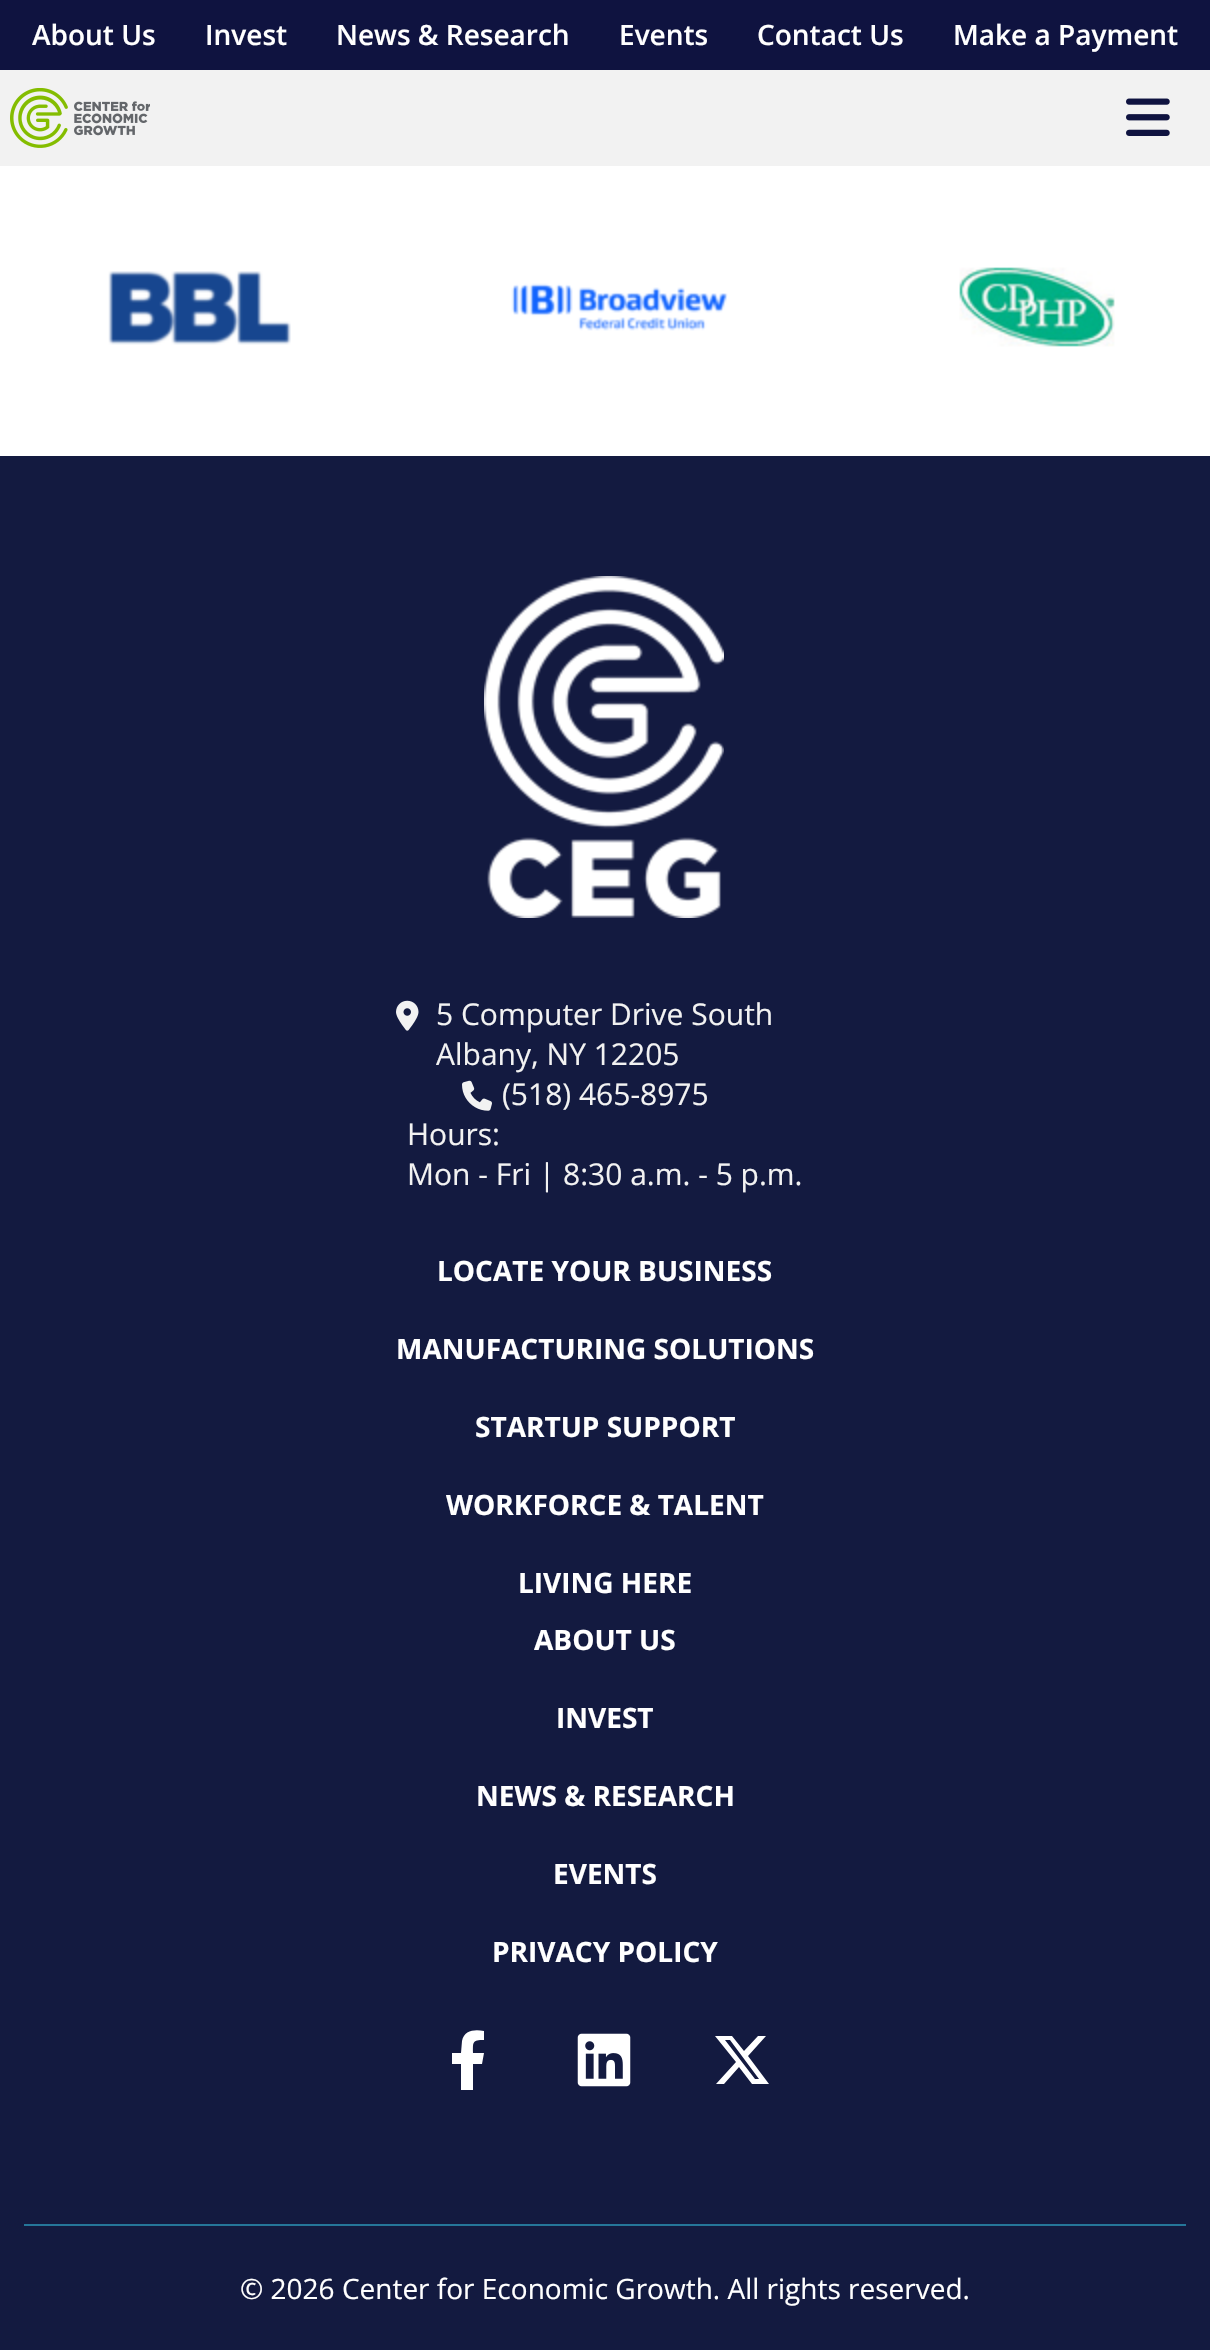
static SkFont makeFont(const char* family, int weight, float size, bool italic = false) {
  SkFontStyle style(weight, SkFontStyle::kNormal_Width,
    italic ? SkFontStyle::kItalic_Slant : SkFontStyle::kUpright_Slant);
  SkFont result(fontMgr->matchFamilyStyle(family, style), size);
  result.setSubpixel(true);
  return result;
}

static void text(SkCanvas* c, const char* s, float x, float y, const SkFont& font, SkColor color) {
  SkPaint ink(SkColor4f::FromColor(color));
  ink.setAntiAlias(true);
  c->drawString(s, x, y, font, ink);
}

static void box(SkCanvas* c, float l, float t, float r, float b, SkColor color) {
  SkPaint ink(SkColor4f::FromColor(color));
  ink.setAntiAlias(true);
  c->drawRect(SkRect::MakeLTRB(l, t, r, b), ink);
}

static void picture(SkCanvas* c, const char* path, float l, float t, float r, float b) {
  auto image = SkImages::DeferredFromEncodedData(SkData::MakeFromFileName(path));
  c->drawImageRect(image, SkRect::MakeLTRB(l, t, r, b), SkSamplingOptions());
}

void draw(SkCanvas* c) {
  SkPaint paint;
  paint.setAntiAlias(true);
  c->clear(0xffffffff);
  box(c, 0, 70, 1210, 166, 0xfff2f2f2);
  box(c, 0, 0, 1210, 70, 0xff0f1340);
  SkFont face1 = makeFont("Open Sans", 600, 28);
  text(c, "About Us", 32, 45, face1, 0xffffffff);
  text(c, "Invest", 205, 45, face1, 0xffffffff);
  text(c, "News & Research", 336, 45, face1, 0xffffffff);
  text(c, "Events", 619, 45, face1, 0xffffffff);
  text(c, "Contact Us", 757, 45, face1, 0xffffffff);
  text(c, "Make a Payment", 953, 45, face1, 0xffffffff);
  picture(c, "img_01.png", 10, 88, 150, 148);
  picture(c, "img_02.png", 1126, 98, 1170, 136);
  picture(c, "img_03.png", 108, 271, 291, 345);
  picture(c, "img_04.png", 511, 283, 728, 331);
  picture(c, "img_05.png", 959, 267, 1115, 347);
  box(c, 0, 456, 1210, 2350, 0xff131a40);
  picture(c, "img_06.png", 484, 576, 724, 918);
  picture(c, "img_07.png", 396, 1000, 419, 1031);
  SkFont face2 = makeFont("Open Sans", 400, 30);
  text(c, "5 Computer Drive South", 436, 1025, face2, 0xfff2f2f2);
  text(c, "Albany, NY 12205", 436, 1065, face2, 0xfff2f2f2);
  picture(c, "img_08.png", 462, 1080, 492, 1111);
  text(c, "(518) 465-8975", 502, 1105, face2, 0xfff2f2f2);
  text(c, "Hours:", 407, 1145, face2, 0xfff2f2f2);
  text(c, "Mon - Fri | 8:30 a.m. - 5 p.m.", 407, 1185, face2, 0xfff2f2f2);
  SkFont face3 = makeFont("Open Sans", 700, 28);
  text(c, "LOCATE YOUR BUSINESS", 437, 1281, face3, 0xffffffff);
  text(c, "MANUFACTURING SOLUTIONS", 396, 1359, face3, 0xffffffff);
  text(c, "STARTUP SUPPORT", 475, 1437, face3, 0xffffffff);
  text(c, "WORKFORCE & TALENT", 446, 1515, face3, 0xffffffff);
  text(c, "LIVING HERE", 518, 1593, face3, 0xffffffff);
  text(c, "ABOUT US", 534, 1650, face3, 0xffffffff);
  text(c, "INVEST", 556, 1728, face3, 0xffffffff);
  text(c, "NEWS & RESEARCH", 476, 1806, face3, 0xffffffff);
  text(c, "EVENTS", 553, 1884, face3, 0xffffffff);
  text(c, "PRIVACY POLICY", 492, 1962, face3, 0xffffffff);
  paint.setColor(0xffffffff);
  c->drawPath(SkPathBuilder().moveTo(482, 2064).lineTo(484, 2053).lineTo(473, 2053).cubicTo(473, 2042, 472, 2040, 484, 2040).lineTo(484, 2031).cubicTo(475, 2029, 464, 2030, 462, 2041).lineTo(461, 2053).lineTo(452, 2053).lineTo(452, 2064).lineTo(461, 2064).lineTo(461, 2090).lineTo(473, 2090).lineTo(473, 2064).close().detach(), paint);
  picture(c, "img_09.png", 577, 2033, 631, 2087);
  c->drawPath(SkPathBuilder().moveTo(758, 2036).lineTo(766, 2036).lineTo(748, 2056).lineTo(769, 2084).lineTo(752, 2084).lineTo(739, 2067).lineTo(724, 2084).lineTo(716, 2084).lineTo(736, 2062).lineTo(715, 2036).lineTo(732, 2036).lineTo(744, 2051).close().moveTo(755, 2079).lineTo(759, 2079).lineTo(730, 2040).lineTo(725, 2040).close().detach(), paint);
  box(c, 24, 2224, 1186, 2226, 0xff25769a);
  SkFont face4 = makeFont("Open Sans", 400, 28);
  text(c, "© 2026 Center for Economic Growth. All rights reserved.", 240, 2299, face4, 0xffffffff);
}
